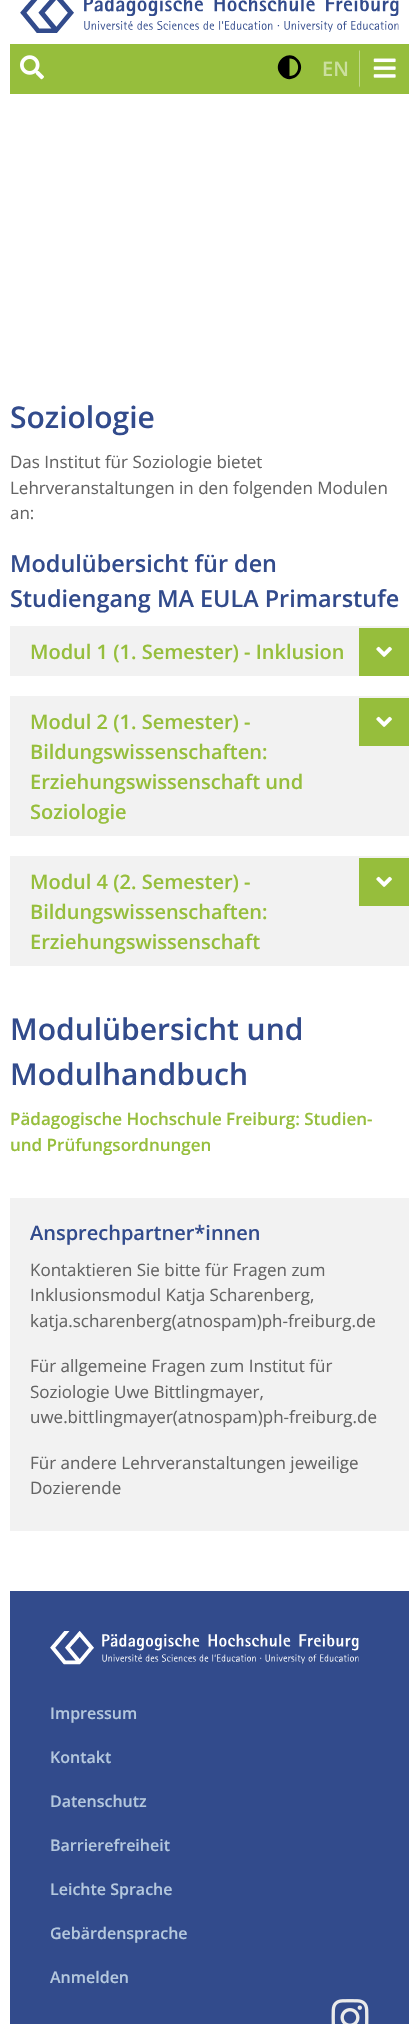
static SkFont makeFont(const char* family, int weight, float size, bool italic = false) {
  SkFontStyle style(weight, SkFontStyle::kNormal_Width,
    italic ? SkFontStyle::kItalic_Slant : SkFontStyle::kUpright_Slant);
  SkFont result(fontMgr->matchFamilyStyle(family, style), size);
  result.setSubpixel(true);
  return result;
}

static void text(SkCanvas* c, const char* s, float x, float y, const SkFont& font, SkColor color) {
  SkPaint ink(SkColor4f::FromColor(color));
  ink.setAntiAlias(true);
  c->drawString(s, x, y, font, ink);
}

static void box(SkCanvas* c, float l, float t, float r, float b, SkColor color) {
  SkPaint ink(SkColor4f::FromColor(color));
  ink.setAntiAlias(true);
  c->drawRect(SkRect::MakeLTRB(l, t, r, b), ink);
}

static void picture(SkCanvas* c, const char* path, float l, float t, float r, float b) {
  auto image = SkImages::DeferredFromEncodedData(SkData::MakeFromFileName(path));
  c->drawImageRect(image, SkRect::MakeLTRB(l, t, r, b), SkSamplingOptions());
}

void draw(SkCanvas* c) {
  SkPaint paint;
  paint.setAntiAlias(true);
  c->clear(0xffffffff);
  picture(c, "img_01.png", 20, 0, 399, 33);
  box(c, 10, 44, 409, 94, 0xff96be3c);
  picture(c, "img_02.png", 20, 55, 44, 80);
  paint.setColor(0xff000000);
  c->drawPath(SkPathBuilder().moveTo(281.5f, 75.5f).cubicTo(270.5f, 64.5f, 287, 48, 297.5f, 59).cubicTo(308.5f, 70, 292, 86.5f, 281.5f, 75.5f).close().moveTo(289.5f, 76).cubicTo(301, 76, 301, 58.5f, 289.5f, 58.5f).close().detach(), paint);
  SkFont face1 = makeFont("Open Sans", 600, 20);
  text(c, "EN", 322, 76, face1, 0xffcbdf9e);
  paint.setColor(0xffc0d88a);
  c->drawPath(SkPathBuilder().moveTo(359, 87.5f).lineTo(359, 50).lineTo(360, 51).lineTo(360, 86).close().detach(), paint);
  picture(c, "img_03.png", 373, 58, 396, 78);
  SkFont face2 = makeFont("Open Sans", 600, 30);
  text(c, "Soziologie", 10, 428, face2, 0xff324b8c);
  SkFont face3 = makeFont("Open Sans", 400, 17);
  text(c, "Das Institut für Soziologie bietet", 10, 468, face3, 0xff646464);
  text(c, "Lehrveranstaltungen in den folgenden Modulen", 10, 494, face3, 0xff646464);
  text(c, "an:", 10, 519, face3, 0xff646464);
  SkFont face4 = makeFont("Open Sans", 600, 23.4f);
  text(c, "Modulübersicht für den", 10, 572, face4, 0xff324b8c);
  text(c, "Studiengang MA EULA Primarstufe", 10, 607, face4, 0xff324b8c);
  box(c, 10, 626, 409, 676, 0xfff2f2f2);
  text(c, "Modul 1 (1. Semester) - Inklusion", 30, 659, face1, 0xff96be3c);
  box(c, 359, 628, 409, 676, 0xff96be3c);
  picture(c, "img_04.png", 376, 646, 392, 657);
  box(c, 10, 696, 409, 836, 0xfff2f2f2);
  text(c, "Modul 2 (1. Semester) -", 30, 729, face1, 0xff96be3c);
  box(c, 359, 698, 409, 746, 0xff96be3c);
  picture(c, "img_04.png", 376, 716, 392, 727);
  text(c, "Bildungswissenschaften:", 30, 759, face1, 0xff96be3c);
  text(c, "Erziehungswissenschaft und", 30, 789, face1, 0xff96be3c);
  text(c, "Soziologie", 30, 819, face1, 0xff96be3c);
  box(c, 10, 856, 409, 966, 0xfff2f2f2);
  text(c, "Modul 4 (2. Semester) -", 30, 889, face1, 0xff96be3c);
  box(c, 359, 858, 409, 906, 0xff96be3c);
  picture(c, "img_04.png", 376, 876, 392, 887);
  text(c, "Bildungswissenschaften:", 30, 919, face1, 0xff96be3c);
  text(c, "Erziehungswissenschaft", 30, 949, face1, 0xff96be3c);
  text(c, "Modulübersicht und", 10, 1040, face2, 0xff324b8c);
  text(c, "Modulhandbuch", 10, 1085, face2, 0xff324b8c);
  SkFont face5 = makeFont("Open Sans", 600, 17);
  text(c, "Pädagogische Hochschule Freiburg: Studien-", 10, 1125, face5, 0xff96be3c);
  text(c, "und Prüfungsordnungen", 10, 1151, face5, 0xff96be3c);
  box(c, 10, 1198, 409, 1531, 0xfff2f2f2);
  text(c, "Ansprechpartner*innen", 30, 1240, face1, 0xff324b8c);
  text(c, "Kontaktieren Sie bitte für Fragen zum", 30, 1276, face3, 0xff646464);
  text(c, "Inklusionsmodul Katja Scharenberg,", 30, 1301, face3, 0xff646464);
  text(c, "katja.scharenberg(atnospam)ph-freiburg.de", 30, 1327, face3, 0xff646464);
  text(c, "Für allgemeine Fragen zum Institut für", 30, 1372, face3, 0xff646464);
  text(c, "Soziologie Uwe Bittlingmayer,", 30, 1398, face3, 0xff646464);
  text(c, "uwe.bittlingmayer(atnospam)ph-freiburg.de", 30, 1423, face3, 0xff646464);
  text(c, "Für andere Lehrveranstaltungen jeweilige", 30, 1469, face3, 0xff646464);
  text(c, "Dozierende", 30, 1494, face3, 0xff646464);
  box(c, 10, 1591, 409, 2024, 0xff324b8c);
  picture(c, "img_05.png", 50, 1631, 359, 1665);
  SkFont face6 = makeFont("Open Sans", 600, 16);
  text(c, "Impressum", 50, 1719, face6, 0xffb4c8de);
  text(c, "Kontakt", 50, 1763, face6, 0xffb4c8de);
  text(c, "Datenschutz", 50, 1807, face6, 0xffb4c8de);
  text(c, "Barrierefreiheit", 50, 1851, face6, 0xffb4c8de);
  text(c, "Leichte Sprache", 50, 1895, face6, 0xffb4c8de);
  text(c, "Gebärdensprache", 50, 1939, face6, 0xffb4c8de);
  text(c, "Anmelden", 50, 1983, face6, 0xffb4c8de);
  picture(c, "img_06.png", 331, 1999, 369, 2024);
}
